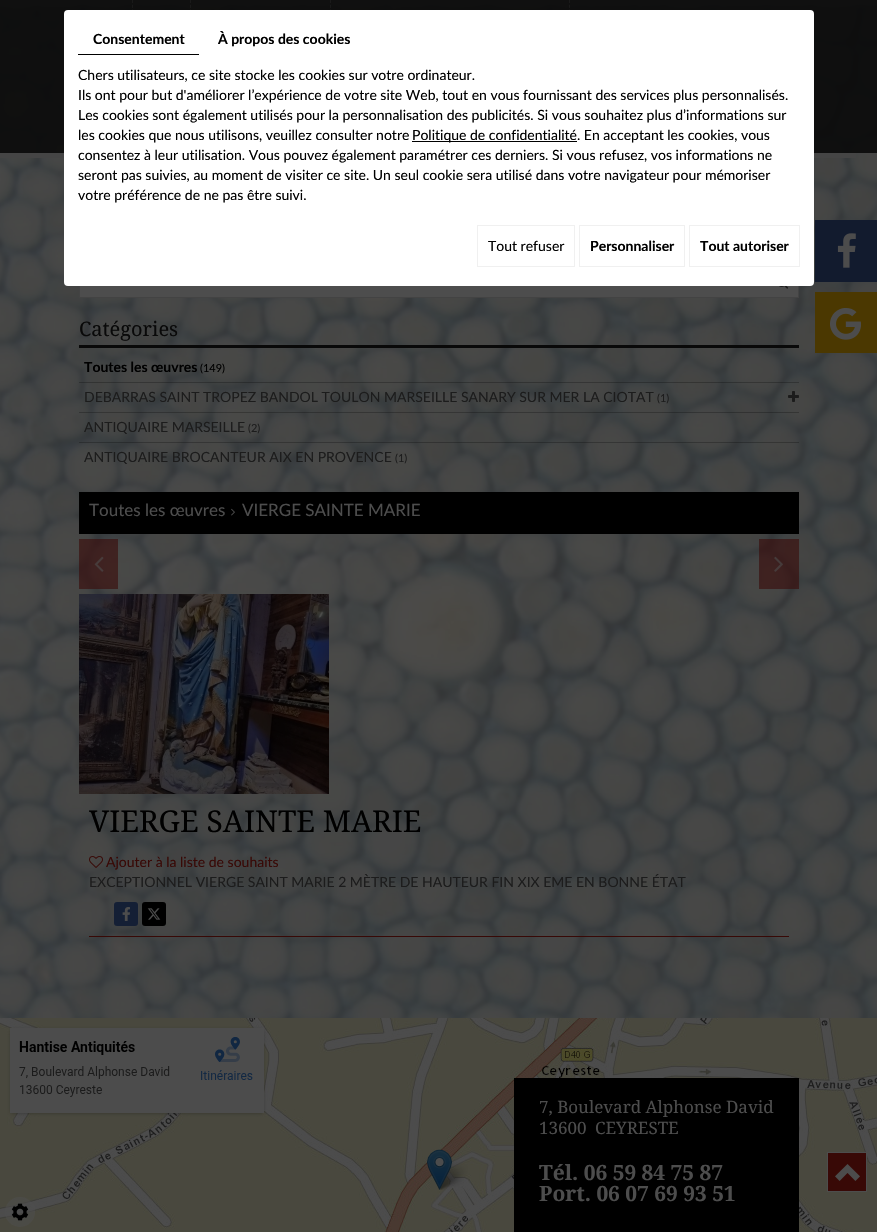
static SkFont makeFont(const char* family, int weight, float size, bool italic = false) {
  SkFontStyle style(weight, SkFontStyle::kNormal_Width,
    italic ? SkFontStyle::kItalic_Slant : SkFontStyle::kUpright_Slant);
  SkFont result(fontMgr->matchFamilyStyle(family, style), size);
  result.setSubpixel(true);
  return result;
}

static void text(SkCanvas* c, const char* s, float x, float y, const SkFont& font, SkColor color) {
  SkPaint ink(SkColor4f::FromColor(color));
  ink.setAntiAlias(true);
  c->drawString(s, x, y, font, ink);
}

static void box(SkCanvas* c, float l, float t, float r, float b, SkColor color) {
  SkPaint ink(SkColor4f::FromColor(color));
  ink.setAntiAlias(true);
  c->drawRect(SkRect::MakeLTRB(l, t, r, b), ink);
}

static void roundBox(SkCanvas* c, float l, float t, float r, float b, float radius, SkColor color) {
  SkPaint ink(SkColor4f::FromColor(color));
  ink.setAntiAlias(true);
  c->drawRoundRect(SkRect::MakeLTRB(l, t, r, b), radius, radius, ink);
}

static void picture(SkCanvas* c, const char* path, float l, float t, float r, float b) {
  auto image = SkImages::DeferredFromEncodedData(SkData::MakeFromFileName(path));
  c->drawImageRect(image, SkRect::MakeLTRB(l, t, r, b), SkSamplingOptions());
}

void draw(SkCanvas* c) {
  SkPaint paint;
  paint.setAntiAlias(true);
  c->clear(0xff4d4d4d);
  picture(c, "img_01.png", 0, 2, 877, 1018);
  box(c, 0, 0, 877, 153, 0xe6090909);
  box(c, 0, 153, 856, 158, 0xff454545);
  paint.setStyle(SkPaint::kStroke_Style);
  paint.setStrokeWidth(1);
  paint.setColor(0x2b4d4d4d);
  paint.setPathEffect(SkDashPathEffect::Make({{3, 1.8f}}, 0));
  c->drawPath(SkPathBuilder().moveTo(132.5f, 0).lineTo(132.5f, 51).moveTo(190.5f, 0).lineTo(190.5f, 51).detach(), paint);
  paint.setPathEffect(nullptr);
  paint.setPathEffect(SkDashPathEffect::Make({{3, 1.8f}}, 0));
  c->drawPath(SkPathBuilder().moveTo(330.5f, 0).lineTo(330.5f, 51).detach(), paint);
  paint.setPathEffect(nullptr);
  paint.setPathEffect(SkDashPathEffect::Make({{3, 1.8f}}, 0));
  c->drawPath(SkPathBuilder().moveTo(569.5f, 0).lineTo(569.5f, 51).detach(), paint);
  paint.setPathEffect(nullptr);
  box(c, 80, 286, 798, 297, 0xff4d4d4d);
  paint.setColor(0xff434343);
  c->drawRect(SkRect::MakeLTRB(79.5f, 268.5f, 798.5f, 297.5f), paint);
  roundBox(c, 64, 10, 814, 286, 4, 0xffffffff);
  box(c, 78, 54, 199, 55, 0xff000000);
  SkFont face1 = makeFont("Lato", 700, 14);
  text(c, "Consentement", 93, 44, face1, 0xff000000);
  text(c, "À propos des cookies", 218, 44, face1, 0xff000000);
  SkFont face2 = makeFont("Lato", 400, 14);
  text(c, "Chers utilisateurs, ce site stocke les cookies sur votre ordinateur.", 78, 80, face2, 0xff000000);
  text(c, "Ils ont pour but d'améliorer l’expérience de votre site Web, tout en vous fournissant des services plus personnalisés.", 78, 100, face2, 0xff000000);
  text(c, "Les cookies sont également utilisés pour la personnalisation des publicités. Si vous souhaitez plus d’informations sur", 78, 120, face2, 0xff000000);
  text(c, "les cookies que nous utilisons, veuillez consulter notre", 78, 140, face2, 0xff000000);
  box(c, 412, 141, 577, 142, 0xff000000);
  text(c, "Politique de confidentialité. En acceptant les cookies, vous", 412, 140, face2, 0xff000000);
  text(c, "consentez à leur utilisation. Vous pouvez également paramétrer ces derniers. Si vous refusez, vos informations ne", 78, 160, face2, 0xff000000);
  text(c, "seront pas suivies, au moment de visiter ce site. Un seul cookie sera utilisé dans votre navigateur pour mémoriser", 78, 180, face2, 0xff000000);
  text(c, "votre préférence de ne pas être suivi.", 78, 200, face2, 0xff000000);
  paint.setColor(0xfff0f0f0);
  c->drawRect(SkRect::MakeLTRB(477.5f, 225.5f, 574.5f, 266.5f), paint);
  text(c, "Tout refuser", 488, 251, face2, 0xff000000);
  c->drawRect(SkRect::MakeLTRB(579.5f, 225.5f, 684.5f, 266.5f), paint);
  text(c, "Personnaliser", 590, 251, face1, 0xff000000);
  c->drawRect(SkRect::MakeLTRB(689.5f, 225.5f, 799.5f, 266.5f), paint);
  text(c, "Tout autoriser", 700, 251, face1, 0xff000000);
  box(c, 815, 220, 877, 282, 0xff121b2e);
  picture(c, "img_02.png", 837, 233, 856, 268);
  box(c, 815, 292, 877, 353, 0xff4b3801);
  picture(c, "img_03.png", 830, 308, 861, 340);
  picture(c, "img_04.png", 779, 286, 789, 289);
  box(c, 79, 345, 799, 348, 0xff090909);
  SkFont face3 = makeFont("Noto Serif", 400, 20);
  text(c, "Catégories", 79, 336, face3, 0xff090909);
  text(c, "Toutes les œuvres", 84, 372, face1, 0xff000000);
  SkFont face4 = makeFont("Lato", 400, 11);
  text(c, "(149)", 200, 372, face4, 0xff000000);
  box(c, 79, 382, 799, 383, 0x40000000);
  text(c, "DEBARRAS SAINT TROPEZ BANDOL TOULON MARSEILLE SANARY SUR MER LA CIOTAT", 84, 402, face2, 0xff1c1c1c);
  text(c, "(1)", 657, 402, face4, 0xff1c1c1c);
  picture(c, "img_05.png", 788, 391, 799, 402);
  box(c, 79, 412, 799, 413, 0x40000000);
  text(c, "ANTIQUAIRE MARSEILLE", 84, 432, face2, 0xff1c1c1c);
  text(c, "(2)", 248, 432, face4, 0xff1c1c1c);
  box(c, 79, 442, 799, 443, 0x40000000);
  text(c, "ANTIQUAIRE BROCANTEUR AIX EN PROVENCE", 84, 462, face2, 0xff1c1c1c);
  text(c, "(1)", 395, 462, face4, 0xff1c1c1c);
  box(c, 79, 492, 799, 534, 0xff000000);
  SkFont face5 = makeFont("Lato", 400, 17);
  text(c, "Toutes les œuvres", 89, 516, face5, 0xff4d4d4d);
  picture(c, "img_06.png", 231, 508, 235, 516);
  text(c, "VIERGE SAINTE MARIE", 242, 516, face5, 0xff4d4d4d);
  box(c, 79, 539, 118, 589, 0x99380906);
  picture(c, "img_07.png", 94, 556, 104, 572);
  box(c, 759, 539, 799, 589, 0x99380906);
  picture(c, "img_08.png", 774, 556, 783, 572);
  picture(c, "img_09.png", 79, 594, 329, 794);
  SkFont face6 = makeFont("Noto Serif", 400, 30);
  text(c, "VIERGE SAINTE MARIE", 89, 832, face6, 0xff000000);
  picture(c, "img_10.png", 89, 856, 103, 868);
  text(c, "Ajouter à la liste de souhaits", 106, 867, face2, 0xff380906);
  box(c, 89, 936, 789, 937, 0xff380906);
  text(c, "EXCEPTIONNEL VIERGE SAINT MARIE 2 MÈTRE DE HAUTEUR FIN XIX EME EN BONNE ÉTAT", 89, 887, face2, 0xff1c1c1c);
  roundBox(c, 114, 902, 138, 926, 3, 0xff141f35);
  picture(c, "img_11.png", 122, 907, 130, 921);
  roundBox(c, 142, 902, 166, 926, 3, 0xff000000);
  picture(c, "img_12.png", 147, 908, 161, 920);
  picture(c, "img_13.png", 0, 1018, 877, 1232);
  box(c, 514, 1078, 799, 1232, 0xff000000);
  SkFont face7 = makeFont("Noto Serif", 400, 17);
  text(c, "7, Boulevard Alphonse David", 539, 1113, face7, 0xff4d4d4d);
  text(c, "13600", 539, 1134, face7, 0xff4d4d4d);
  text(c, "CEYRESTE", 595, 1134, face7, 0xff4d4d4d);
  SkFont face8 = makeFont("Noto Serif", 700, 21);
  text(c, "Tél. 06 59 84 75 87", 539, 1180, face8, 0xff4d4d4d);
  text(c, "Port. 06 07 69 93 51", 539, 1201, face8, 0xff4d4d4d);
  box(c, 828, 1153, 866, 1191, 0xff380906);
  picture(c, "img_14.png", 835, 1164, 860, 1181);
  paint.setColor(0xff4d4d4d);
  c->drawRect(SkRect::MakeLTRB(827.5f, 1152.5f, 866.5f, 1191.5f), paint);
  paint.setStyle(SkPaint::kFill_Style);
  paint.setColor(0x8a4d4d4d);
  c->drawCircle(20, 1212, 15, paint);
  picture(c, "img_15.png", 11, 1203, 29, 1221);
}
